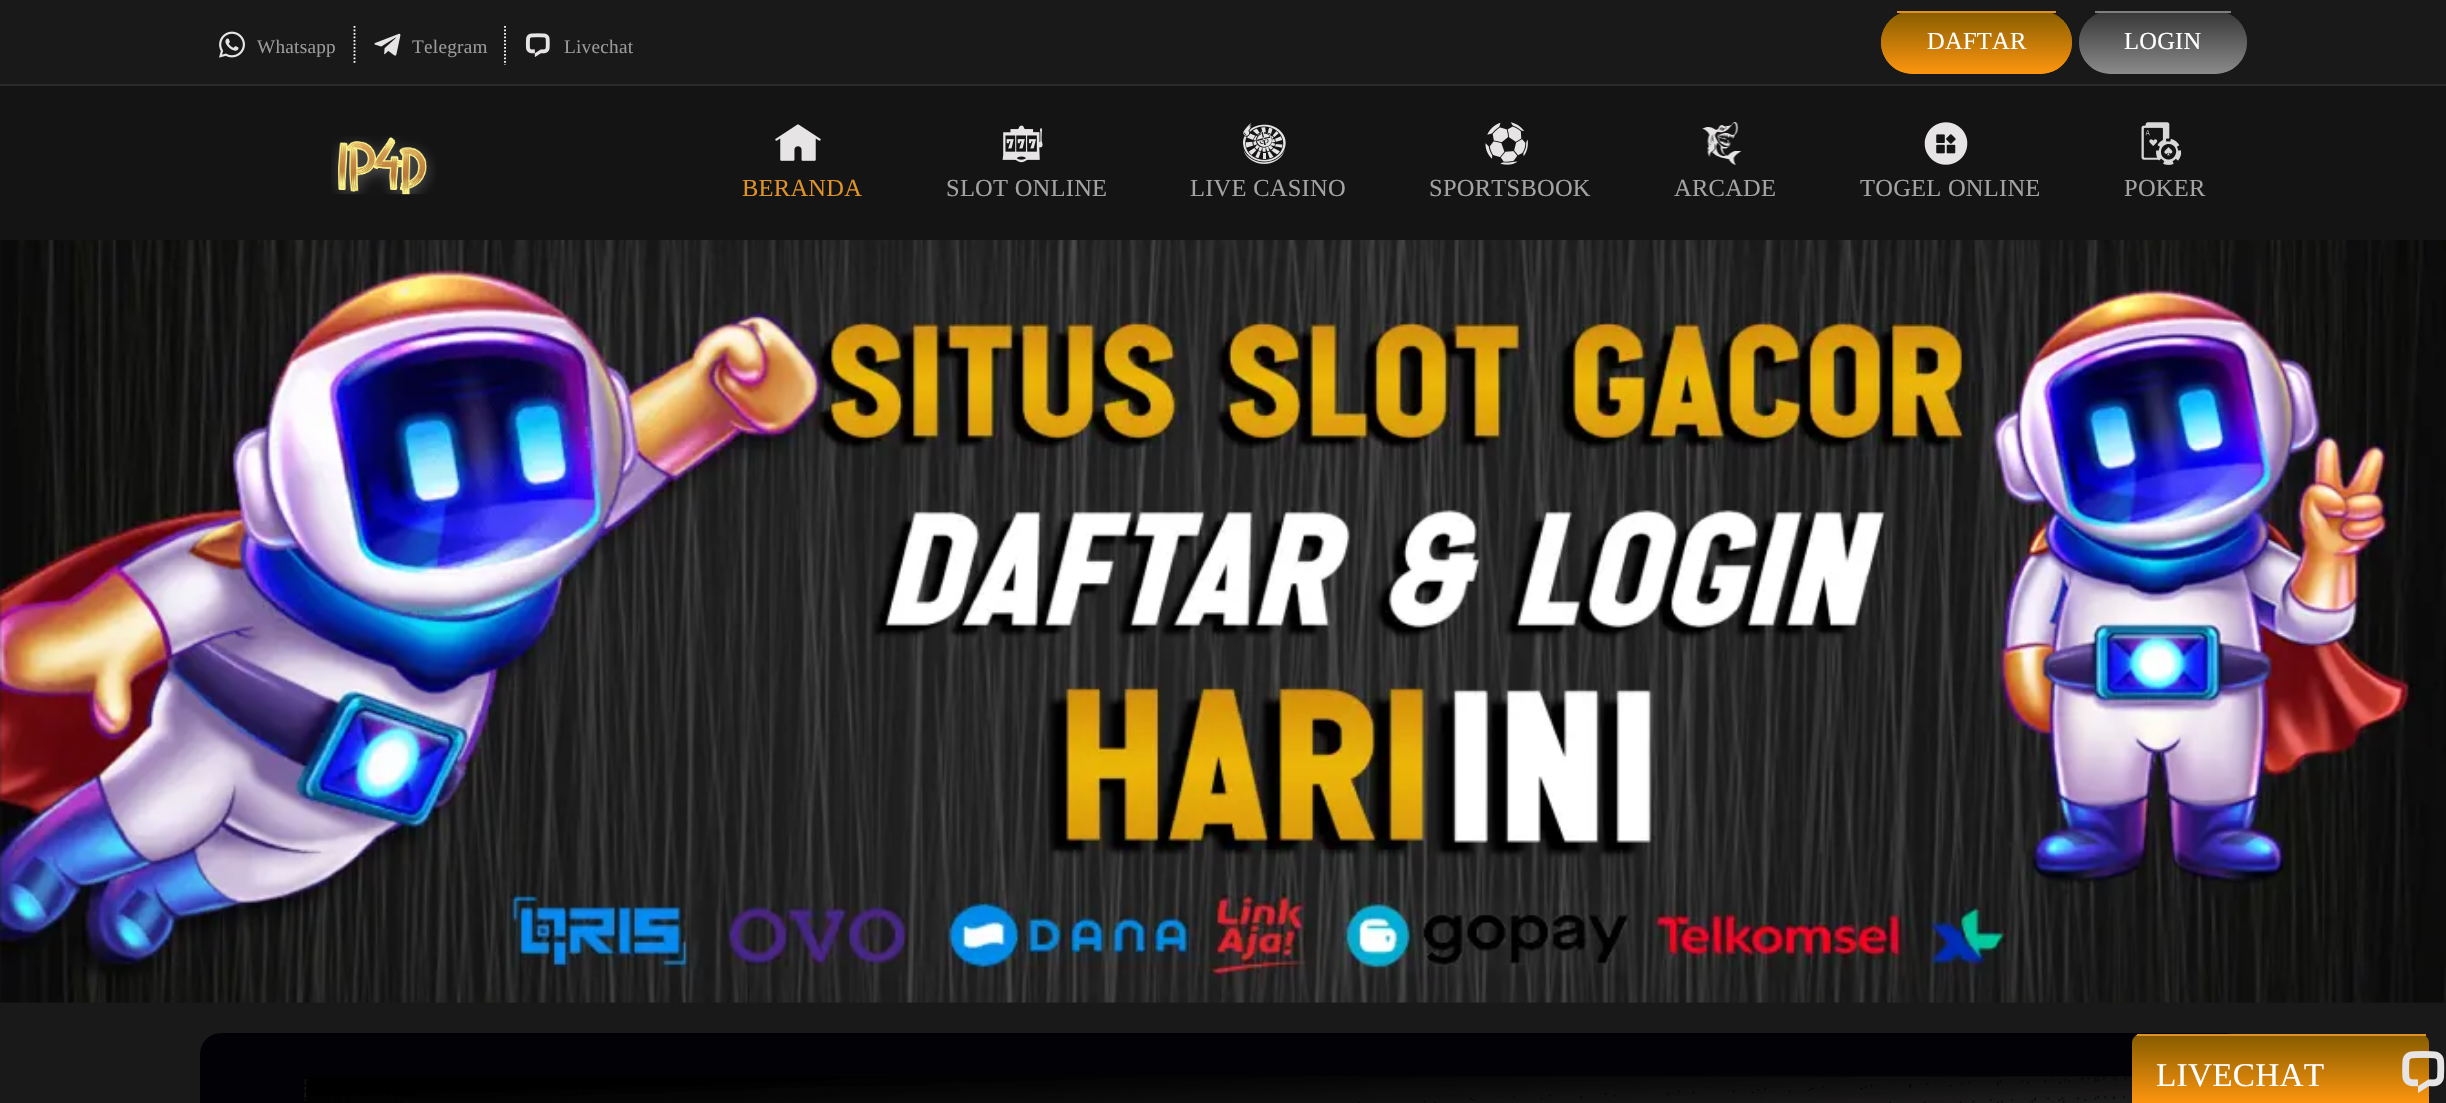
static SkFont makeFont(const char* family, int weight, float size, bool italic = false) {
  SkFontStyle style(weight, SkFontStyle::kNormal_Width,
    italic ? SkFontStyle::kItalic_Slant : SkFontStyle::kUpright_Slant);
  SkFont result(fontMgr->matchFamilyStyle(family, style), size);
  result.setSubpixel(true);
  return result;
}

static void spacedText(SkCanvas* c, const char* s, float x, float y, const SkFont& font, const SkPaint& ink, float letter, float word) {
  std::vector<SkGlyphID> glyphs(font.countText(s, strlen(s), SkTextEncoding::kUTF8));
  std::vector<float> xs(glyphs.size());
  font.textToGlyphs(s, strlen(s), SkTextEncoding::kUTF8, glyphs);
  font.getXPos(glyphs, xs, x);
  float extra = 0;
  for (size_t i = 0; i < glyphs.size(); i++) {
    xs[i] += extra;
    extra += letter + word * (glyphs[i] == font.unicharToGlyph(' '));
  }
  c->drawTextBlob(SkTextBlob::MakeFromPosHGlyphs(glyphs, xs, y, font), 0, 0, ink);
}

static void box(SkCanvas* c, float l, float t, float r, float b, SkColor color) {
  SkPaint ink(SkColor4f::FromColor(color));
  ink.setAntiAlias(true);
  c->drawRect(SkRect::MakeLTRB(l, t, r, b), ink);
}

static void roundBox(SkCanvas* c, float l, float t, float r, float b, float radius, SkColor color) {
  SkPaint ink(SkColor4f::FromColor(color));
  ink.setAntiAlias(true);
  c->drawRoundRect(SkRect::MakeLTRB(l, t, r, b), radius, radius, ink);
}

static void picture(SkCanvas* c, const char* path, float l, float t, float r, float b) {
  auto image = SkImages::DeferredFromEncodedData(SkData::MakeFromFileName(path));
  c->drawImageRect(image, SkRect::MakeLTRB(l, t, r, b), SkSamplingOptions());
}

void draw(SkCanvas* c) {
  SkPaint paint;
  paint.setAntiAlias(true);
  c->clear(0xff191919);
  c->save();
  c->clipRect(SkRect::MakeLTRB(200, 0, 651, 63));
  paint.setStyle(SkPaint::kStroke_Style);
  paint.setStrokeWidth(1.8f);
  paint.setColor(0xffffffff);
  paint.setPathEffect(SkDashPathEffect::Make({{1.75f, 1.75f}}, 0));
  c->drawPath(SkPathBuilder().moveTo(354.5f, 26).lineTo(354.5f, 65).detach(), paint);
  paint.setPathEffect(nullptr);
  c->restore();
  picture(c, "img_01.png", 219, 31, 245, 58);
  SkFont face1 = makeFont("Liberation Serif", 400, 19.25f);
  paint.setStyle(SkPaint::kFill_Style);
  paint.setColor(0xff9a9a9a);
  spacedText(c, "Whatsapp", 257, 53, face1, paint, 0.25f, 0);
  paint.setStyle(SkPaint::kStroke_Style);
  paint.setColor(0xffffffff);
  paint.setPathEffect(SkDashPathEffect::Make({{1.75f, 1.75f}}, 0));
  c->drawPath(SkPathBuilder().moveTo(505, 26).lineTo(505, 65).detach(), paint);
  paint.setPathEffect(nullptr);
  picture(c, "img_02.png", 374, 33, 401, 56);
  paint.setStyle(SkPaint::kFill_Style);
  paint.setColor(0xff9a9a9a);
  spacedText(c, "Telegram", 412, 53, face1, paint, 0.25f, 0);
  picture(c, "img_03.png", 525, 33, 550, 57);
  spacedText(c, "Livechat", 564, 53, face1, paint, 0.25f, 0);
  roundBox(c, 1881, 11, 2072, 74, 31.5f, 0xffdf830b);
  c->save();
  c->clipPath(SkPathBuilder().moveTo(1912.5f, 11).lineTo(2040.5f, 11).cubicTo(2058, 11, 2072, 25, 2072, 42.5f).cubicTo(2072, 60, 2058, 74, 2040.5f, 74).lineTo(1912.5f, 74).cubicTo(1895, 74, 1881, 60, 1881, 42.5f).cubicTo(1881, 25, 1895, 11, 1912.5f, 11).close().detach(), true);
  {
    const SkColor colors[] = {0xff885d00, 0xfffe960f};
    const float stops[] = {0, 1};
    const SkPoint ends[] = {{1977, 12}, {1977, 74}};
    paint.setShader(SkGradientShader::MakeLinear(ends, colors, stops, 2, SkTileMode::kClamp));
    paint.setAlpha(255);
  }
  c->drawPath(SkPathBuilder().moveTo(1881, 12).lineTo(2072, 12).lineTo(2072, 42.5f).cubicTo(2072, 60, 2058, 74, 2040.5f, 74).lineTo(1912.5f, 74).cubicTo(1895, 74, 1881, 60, 1881, 42.5f).close().detach(), paint);
  c->restore();
  box(c, 1897, 11, 2056, 13, 0xffdf9225);
  SkFont face2 = makeFont("Liberation Serif", 400, 24.5f);
  paint.setShader(nullptr);
  paint.setColor(0xffffffff);
  spacedText(c, "DAFTAR", 1927, 49, face2, paint, 0.25f, 0);
  roundBox(c, 2079, 11, 2247, 74, 31.5f, 0xff505050);
  c->save();
  c->clipPath(SkPathBuilder().moveTo(2110.5f, 11).lineTo(2215.5f, 11).cubicTo(2233, 11, 2247, 25, 2247, 42.5f).cubicTo(2247, 60, 2233, 74, 2215.5f, 74).lineTo(2110.5f, 74).cubicTo(2093, 74, 2079, 60, 2079, 42.5f).cubicTo(2079, 25, 2093, 11, 2110.5f, 11).close().detach(), true);
  {
    const SkColor colors[] = {0xff373737, 0xff8b8b8b};
    const float stops[] = {0, 1};
    const SkPoint ends[] = {{2163, 12}, {2163, 74}};
    paint.setShader(SkGradientShader::MakeLinear(ends, colors, stops, 2, SkTileMode::kClamp));
    paint.setAlpha(255);
  }
  c->drawPath(SkPathBuilder().moveTo(2079, 12).lineTo(2247, 12).lineTo(2247, 42.5f).cubicTo(2247, 60, 2233, 74, 2215.5f, 74).lineTo(2110.5f, 74).cubicTo(2093, 74, 2079, 60, 2079, 42.5f).close().detach(), paint);
  c->restore();
  box(c, 2095, 11, 2231, 13, 0xff7e7e7e);
  paint.setShader(nullptr);
  paint.setColor(0xffffffff);
  spacedText(c, "LOGIN", 2124, 49, face2, paint, 0.25f, 0);
  box(c, 0, 86, 2446, 240, 0xff141414);
  box(c, 0, 84, 2446, 86, 0xff2b2b2b);
  picture(c, "img_04.png", 331, 136, 436, 195);
  picture(c, "img_05.png", 775, 124, 821, 161);
  paint.setColor(0xffdf9225);
  spacedText(c, "BERANDA", 742, 196, face2, paint, 0.25f, 0);
  picture(c, "img_06.png", 1002, 125, 1043, 163);
  paint.setColor(0xffa3a3a3);
  spacedText(c, "SLOT ONLINE", 946, 196, face2, paint, 0.25f, 0);
  picture(c, "img_07.png", 1243, 123, 1286, 164);
  spacedText(c, "LIVE CASINO", 1190, 196, face2, paint, 0.25f, 0);
  picture(c, "img_08.png", 1485, 122, 1528, 165);
  spacedText(c, "SPORTSBOOK", 1429, 196, face2, paint, 0.25f, 0);
  picture(c, "img_09.png", 1702, 122, 1742, 165);
  spacedText(c, "ARCADE", 1674, 196, face2, paint, 0.25f, 0);
  picture(c, "img_10.png", 1924, 122, 1968, 165);
  spacedText(c, "TOGEL ONLINE", 1860, 196, face2, paint, 0.25f, 0);
  picture(c, "img_11.png", 2141, 122, 2182, 165);
  spacedText(c, "POKER", 2124, 196, face2, paint, 0.25f, 0);
  picture(c, "img_12.png", 0, 240, 2446, 1003);
  roundBox(c, 200, 1033, 2247, 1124, 21, 0xff020206);
  picture(c, "img_13.png", 304, 1076, 2132, 1103);
  c->save();
  c->clipPath(SkPathBuilder().moveTo(2141, 1034).lineTo(2420, 1034).cubicTo(2425, 1034, 2429, 1038, 2429, 1043).lineTo(2429, 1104).lineTo(2132, 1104).lineTo(2132, 1043).cubicTo(2132, 1038, 2136, 1034, 2141, 1034).close().detach(), true);
  {
    const SkColor colors[] = {0xff885d00, 0xfffe960f};
    const float stops[] = {0, 1};
    const SkPoint ends[] = {{2280, 968}, {2280, 1036}};
    paint.setShader(SkGradientShader::MakeLinear(ends, colors, stops, 2, SkTileMode::kClamp));
    paint.setAlpha(255);
  }
  c->drawRect(SkRect::MakeLTRB(2132, 1035, 2137, 1036), paint);
  {
    const SkColor colors[] = {0xff885d00, 0xfffe960f};
    const float stops[] = {0, 1};
    const SkPoint ends[] = {{2280, 1036}, {2280, 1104}};
    paint.setShader(SkGradientShader::MakeLinear(ends, colors, stops, 2, SkTileMode::kClamp));
    paint.setAlpha(255);
  }
  c->drawRect(SkRect::MakeLTRB(2132, 1036, 2429, 1103), paint);
  c->restore();
  box(c, 2137, 1034, 2426, 1036, 0xffdf9225);
  SkFont face3 = makeFont("Liberation Serif", 400, 33.25f);
  paint.setShader(nullptr);
  paint.setColor(0xffffffff);
  spacedText(c, "LIVECHAT", 2156, 1086, face3, paint, 0.25f, 0);
  picture(c, "img_14.png", 2402, 1051, 2445, 1093);
}
